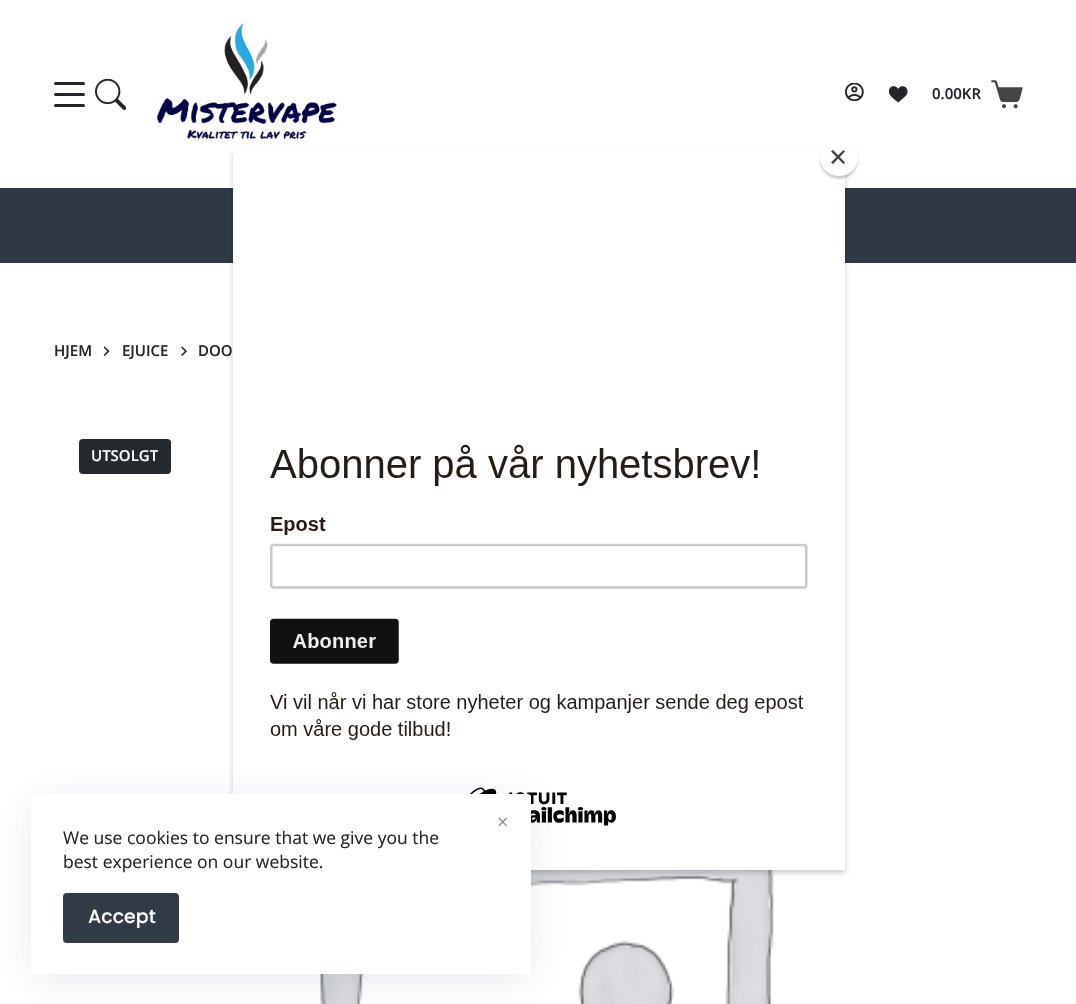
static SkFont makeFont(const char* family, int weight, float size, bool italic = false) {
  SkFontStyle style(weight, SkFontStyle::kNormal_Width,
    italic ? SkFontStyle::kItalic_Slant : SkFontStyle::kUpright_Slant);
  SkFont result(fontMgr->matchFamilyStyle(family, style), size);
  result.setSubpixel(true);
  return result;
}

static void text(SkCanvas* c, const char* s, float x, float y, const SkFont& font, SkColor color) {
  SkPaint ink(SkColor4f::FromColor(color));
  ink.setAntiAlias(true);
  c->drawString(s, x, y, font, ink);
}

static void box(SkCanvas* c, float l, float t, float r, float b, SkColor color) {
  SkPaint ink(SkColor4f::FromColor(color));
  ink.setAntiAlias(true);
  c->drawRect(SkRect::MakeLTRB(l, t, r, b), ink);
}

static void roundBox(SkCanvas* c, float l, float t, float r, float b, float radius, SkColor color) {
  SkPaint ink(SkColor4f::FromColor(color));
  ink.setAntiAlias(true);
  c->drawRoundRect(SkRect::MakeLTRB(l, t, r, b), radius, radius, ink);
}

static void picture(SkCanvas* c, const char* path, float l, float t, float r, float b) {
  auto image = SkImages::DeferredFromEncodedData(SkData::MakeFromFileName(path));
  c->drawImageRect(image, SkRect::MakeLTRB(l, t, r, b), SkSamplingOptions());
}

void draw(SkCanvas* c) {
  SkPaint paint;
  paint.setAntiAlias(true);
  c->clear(0xffffffff);
  roundBox(c, 54, 82, 85, 85, 1.5f, 0xff232529);
  roundBox(c, 54, 93, 85, 96, 1.5f, 0xff232529);
  roundBox(c, 54, 104, 85, 107, 1.5f, 0xff232529);
  picture(c, "img_01.png", 95, 79, 126, 110);
  picture(c, "img_02.png", 157, 23, 339, 141);
  picture(c, "img_03.png", 845, 83, 864, 101);
  picture(c, "img_04.png", 889, 86, 908, 103);
  SkFont face1 = makeFont("Open Sans", 600, 15);
  text(c, "0.00KR", 932, 99, face1, 0xff232529);
  picture(c, "img_05.png", 991, 80, 1023, 109);
  box(c, 0, 188, 1076, 263, 0xff2f3946);
  text(c, "HJEM", 54, 356, face1, 0xff232529);
  picture(c, "img_06.png", 103, 346, 110, 356);
  text(c, "EJUICE", 122, 356, face1, 0xff232529);
  picture(c, "img_07.png", 181, 346, 187, 356);
  text(c, "DOO", 198, 356, face1, 0xff232529);
  roundBox(c, 79, 439, 171, 474, 4, 0xff24292e);
  text(c, "UTSOLGT", 91, 461, face1, 0xffffffff);
  picture(c, "img_08.png", 318, 870, 774, 1004);
  paint.setColor(0x33000000);
  paint.setMaskFilter(SkMaskFilter::MakeBlur(kNormal_SkBlurStyle, 1));
  c->drawRoundRect(SkRect::MakeLTRB(820, 141, 858, 179), 19, 19, paint);
  paint.setMaskFilter(nullptr);
  c->save();
  c->clipPath(SkPathBuilder(SkPathFillType::kEvenOdd).moveTo(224, 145).lineTo(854, 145).lineTo(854, 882).lineTo(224, 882).close().moveTo(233, 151).lineTo(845, 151).lineTo(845, 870).lineTo(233, 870).close().detach(), true);
  paint.setMaskFilter(SkMaskFilter::MakeBlur(kNormal_SkBlurStyle, 2.5f));
  c->drawRect(SkRect::MakeLTRB(233, 154, 845, 873), paint);
  paint.setMaskFilter(nullptr);
  c->restore();
  roundBox(c, 820, 139, 858, 176, 18.5f, 0xffffffff);
  paint.setColor(0xff414141);
  c->drawPath(SkPathBuilder().moveTo(843.5f, 150).lineTo(845, 151.5f).lineTo(833, 164).lineTo(831, 162.5f).close().detach(), paint);
  c->drawPath(SkPathBuilder().moveTo(831, 151.5f).lineTo(833, 150).lineTo(845, 162.5f).lineTo(843.5f, 164).close().detach(), paint);
  picture(c, "img_09.png", 233, 188, 845, 870);
  paint.setColor(0x26223865);
  paint.setMaskFilter(SkMaskFilter::MakeBlur(kNormal_SkBlurStyle, 19));
  c->drawRect(SkRect::MakeLTRB(38, 806, 525, 974), paint);
  paint.setMaskFilter(nullptr);
  roundBox(c, 31, 794, 531, 974, 4, 0xffffffff);
  SkFont face2 = makeFont("Open Sans", 400, 20);
  text(c, "×", 497, 829, face2, 0xff919294);
  SkFont face3 = makeFont("Open Sans", 400, 17.5f);
  text(c, "We use cookies to ensure that we give you the", 63, 844, face3, 0xff232529);
  text(c, "best experience on our website.", 63, 868, face3, 0xff232529);
  roundBox(c, 63, 893, 179, 943, 4, 0xff313b48);
  SkFont face4 = makeFont("Poppins", 500, 19);
  text(c, "Accept", 88, 923, face4, 0xffffffff);
}
